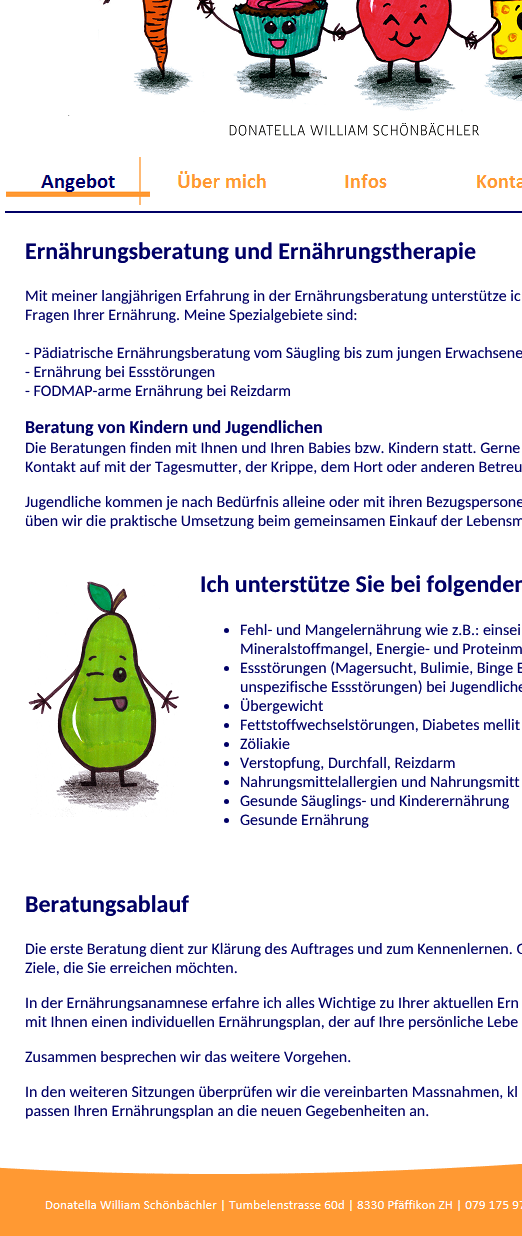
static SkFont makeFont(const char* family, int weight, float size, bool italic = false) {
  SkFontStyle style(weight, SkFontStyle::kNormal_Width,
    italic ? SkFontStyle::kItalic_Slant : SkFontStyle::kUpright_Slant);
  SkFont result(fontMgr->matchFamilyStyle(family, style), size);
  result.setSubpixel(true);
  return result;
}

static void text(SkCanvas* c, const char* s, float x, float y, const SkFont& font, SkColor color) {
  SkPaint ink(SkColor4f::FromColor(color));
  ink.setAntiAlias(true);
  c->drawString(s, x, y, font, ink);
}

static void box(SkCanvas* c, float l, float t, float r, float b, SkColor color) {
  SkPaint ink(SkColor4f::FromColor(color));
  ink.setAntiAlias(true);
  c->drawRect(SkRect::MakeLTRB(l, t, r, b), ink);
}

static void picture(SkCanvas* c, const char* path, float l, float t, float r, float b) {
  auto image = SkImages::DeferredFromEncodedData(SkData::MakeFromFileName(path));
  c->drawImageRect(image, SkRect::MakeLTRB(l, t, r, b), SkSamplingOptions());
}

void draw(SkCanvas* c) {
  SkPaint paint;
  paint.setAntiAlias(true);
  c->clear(0xffffffff);
  box(c, 68, 115, 70, 116, 0xff9f9f9f);
  box(c, 69, 115, 70, 116, 0xffeeeeee);
  picture(c, "img_01.png", 98, 0, 522, 136);
  picture(c, "img_02.png", 6, 157, 150, 205);
  picture(c, "img_03.png", 178, 171, 266, 188);
  picture(c, "img_04.png", 345, 174, 387, 188);
  picture(c, "img_05.png", 477, 175, 522, 188);
  box(c, 5, 211, 522, 213, 0xff000066);
  SkFont face1 = makeFont("Carlito", 700, 24);
  text(c, "Ernährungsberatung und Ernährungstherapie", 25, 259, face1, 0xff000066);
  SkFont face2 = makeFont("Carlito", 400, 16);
  text(c, "Mit meiner langjährigen Erfahrung in der Ernährungsberatung unterstütze ic", 25, 301, face2, 0xff000066);
  text(c, "Fragen Ihrer Ernährung. Meine Spezialgebiete sind:", 25, 320, face2, 0xff000066);
  text(c, "- Pädiatrische Ernährungsberatung vom Säugling bis zum jungen Erwachsene", 25, 358, face2, 0xff000066);
  text(c, "- Ernährung bei Essstörungen", 25, 377, face2, 0xff000066);
  text(c, "- FODMAP-arme Ernährung bei Reizdarm", 25, 396, face2, 0xff000066);
  SkFont face3 = makeFont("Carlito", 700, 18);
  text(c, "Beratung von Kindern und Jugendlichen", 25, 433, face3, 0xff000066);
  text(c, "Die Beratungen finden mit Ihnen und Ihren Babies bzw. Kindern statt. Gerne", 25, 453, face2, 0xff000066);
  text(c, "Kontakt auf mit der Tagesmutter, der Krippe, dem Hort oder anderen Betreu", 25, 472, face2, 0xff000066);
  text(c, "Jugendliche kommen je nach Bedürfnis alleine oder mit ihren Bezugspersone", 25, 507, face2, 0xff000066);
  text(c, "üben wir die praktische Umsetzung beim gemeinsamen Einkauf der Lebensm", 25, 526, face2, 0xff000066);
  picture(c, "img_06.png", 28, 581, 179, 817);
  text(c, "Ich unterstütze Sie bei folgenden", 200, 592, face1, 0xff000066);
  paint.setColor(0xff000066);
  c->drawCircle(226.5f, 630.5f, 2.5f, paint);
  text(c, "Fehl- und Mangelernährung wie z.B.: einsei", 240, 635, face2, 0xff000066);
  text(c, "Mineralstoffmangel, Energie- und Proteinm", 240, 654, face2, 0xff000066);
  c->drawCircle(226.5f, 668.5f, 2.5f, paint);
  text(c, "Essstörungen (Magersucht, Bulimie, Binge E", 240, 673, face2, 0xff000066);
  text(c, "unspezifische Essstörungen) bei Jugendliche", 240, 692, face2, 0xff000066);
  c->drawCircle(226.5f, 706.5f, 2.5f, paint);
  text(c, "Übergewicht", 240, 711, face2, 0xff000066);
  c->drawCircle(226.5f, 725.5f, 2.5f, paint);
  text(c, "Fettstoffwechselstörungen, Diabetes mellit", 240, 730, face2, 0xff000066);
  c->drawCircle(226.5f, 744.5f, 2.5f, paint);
  text(c, "Zöliakie", 240, 749, face2, 0xff000066);
  c->drawCircle(226.5f, 763.5f, 2.5f, paint);
  text(c, "Verstopfung, Durchfall, Reizdarm", 240, 768, face2, 0xff000066);
  c->drawCircle(226.5f, 782.5f, 2.5f, paint);
  text(c, "Nahrungsmittelallergien und Nahrungsmitt", 240, 787, face2, 0xff000066);
  c->drawCircle(226.5f, 801.5f, 2.5f, paint);
  text(c, "Gesunde Säuglings- und Kinderernährung", 240, 806, face2, 0xff000066);
  c->drawCircle(226.5f, 820.5f, 2.5f, paint);
  text(c, "Gesunde Ernährung", 240, 825, face2, 0xff000066);
  text(c, "Beratungsablauf", 25, 912, face1, 0xff000066);
  text(c, "Die erste Beratung dient zur Klärung des Auftrages und zum Kennenlernen. G", 25, 954, face2, 0xff000066);
  text(c, "Ziele, die Sie erreichen möchten.", 25, 973, face2, 0xff000066);
  text(c, "In der Ernährungsanamnese erfahre ich alles Wichtige zu Ihrer aktuellen Ern", 25, 1008, face2, 0xff000066);
  text(c, "mit Ihnen einen individuellen Ernährungsplan, der auf Ihre persönliche Lebe", 25, 1027, face2, 0xff000066);
  text(c, "Zusammen besprechen wir das weitere Vorgehen.", 25, 1062, face2, 0xff000066);
  text(c, "In den weiteren Sitzungen überprüfen wir die vereinbarten Massnahmen, kl", 25, 1097, face2, 0xff000066);
  text(c, "passen Ihren Ernährungsplan an die neuen Gegebenheiten an.", 25, 1116, face2, 0xff000066);
  picture(c, "img_07.png", 0, 1164, 522, 1236);
}
